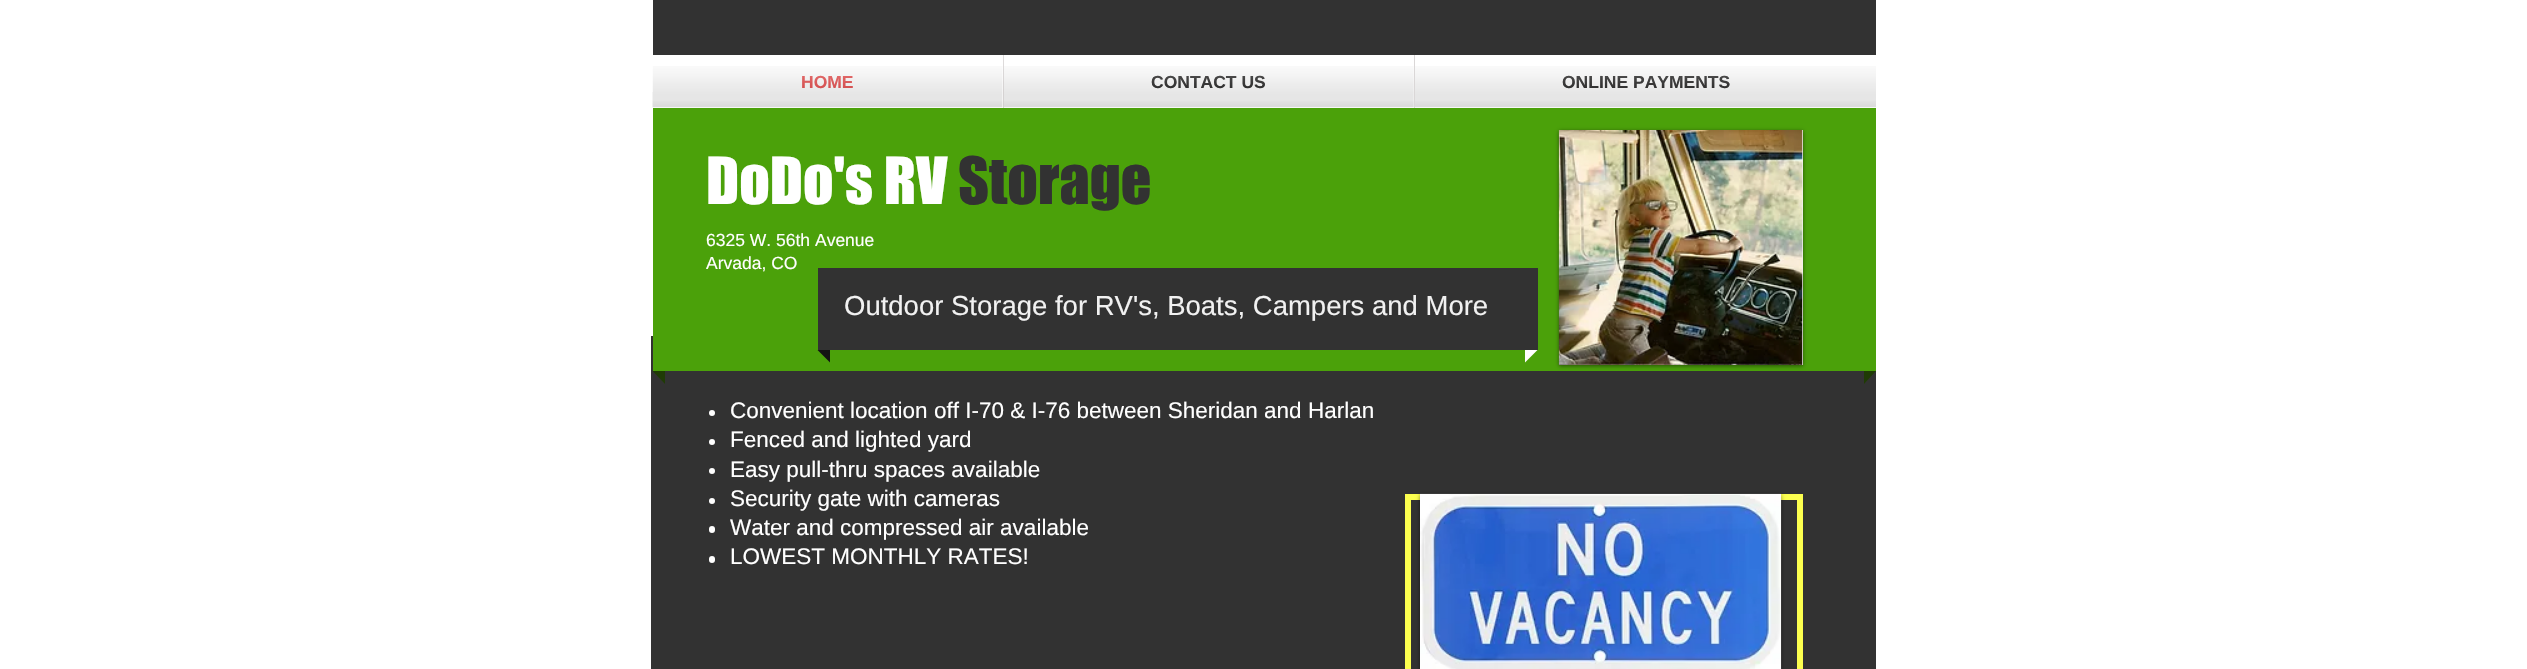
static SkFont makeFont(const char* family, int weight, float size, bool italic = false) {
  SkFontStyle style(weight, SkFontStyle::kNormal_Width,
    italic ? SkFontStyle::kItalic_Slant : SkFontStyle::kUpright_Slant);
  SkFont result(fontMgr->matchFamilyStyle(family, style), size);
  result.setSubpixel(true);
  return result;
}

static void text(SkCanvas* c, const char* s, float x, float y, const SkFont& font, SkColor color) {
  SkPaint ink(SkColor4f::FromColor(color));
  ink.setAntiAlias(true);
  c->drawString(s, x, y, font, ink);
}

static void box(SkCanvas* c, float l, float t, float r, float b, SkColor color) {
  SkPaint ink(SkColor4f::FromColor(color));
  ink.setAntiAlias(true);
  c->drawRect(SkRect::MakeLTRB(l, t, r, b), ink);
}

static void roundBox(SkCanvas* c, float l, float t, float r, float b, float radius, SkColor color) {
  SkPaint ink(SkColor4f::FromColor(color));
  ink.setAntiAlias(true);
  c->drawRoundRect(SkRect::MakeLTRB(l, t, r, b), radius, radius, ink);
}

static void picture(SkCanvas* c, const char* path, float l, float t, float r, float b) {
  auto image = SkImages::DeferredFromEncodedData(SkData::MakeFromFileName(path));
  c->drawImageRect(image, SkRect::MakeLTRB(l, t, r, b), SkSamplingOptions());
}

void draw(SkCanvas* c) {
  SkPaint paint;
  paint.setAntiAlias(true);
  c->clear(0xffffffff);
  box(c, 653, 0, 1876, 55, 0xff323232);
  picture(c, "img_01.png", 652, 92, 653, 107);
  SkFont face1 = makeFont("Liberation Sans", 700, 17.5f);
  text(c, "HOME", 801, 88, face1, 0xffe53d3d);
  picture(c, "img_02.png", 802, 75, 853, 88);
  picture(c, "img_03.png", 652, 66, 1003, 108);
  box(c, 1003, 55, 1004, 108, 0xffdad7d7);
  text(c, "CONTACT US", 1151, 88, face1, 0xff141313);
  picture(c, "img_04.png", 1003, 55, 1266, 89);
  picture(c, "img_05.png", 1003, 66, 1414, 108);
  box(c, 1414, 55, 1415, 108, 0xffdad7d7);
  text(c, "ONLINE PAYMENTS", 1562, 88, face1, 0xff141313);
  picture(c, "img_06.png", 1562, 75, 1729, 89);
  picture(c, "img_07.png", 1415, 66, 1876, 108);
  box(c, 651, 336, 1876, 669, 0xff323232);
  box(c, 653, 108, 1876, 371, 0xff4ba10a);
  SkFont face2 = makeFont("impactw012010", 400, 60);
  text(c, "DoDo's RV", 706, 204, face2, 0xffffffff);
  text(c, "Storage", 958, 204, face2, 0xff323232);
  paint.setColor(0x80000000);
  paint.setMaskFilter(SkMaskFilter::MakeBlur(kNormal_SkBlurStyle, 2));
  c->drawRect(SkRect::MakeLTRB(1559, 131, 1803, 366), paint);
  paint.setMaskFilter(nullptr);
  box(c, 1802, 130, 1803, 365, 0xfff1f1f1);
  picture(c, "img_08.png", 1558, 130, 1803, 365);
  SkFont face3 = makeFont("Liberation Sans", 400, 17.5f);
  text(c, "6325 W. 56th Avenue", 706, 246, face3, 0xffffffff);
  text(c, "Arvada, CO", 706, 269, face3, 0xffffffff);
  box(c, 818, 268, 1538, 350, 0xff323232);
  SkFont face4 = makeFont("Liberation Sans", 400, 27.5f);
  text(c, "Outdoor Storage for RV's, Boats, Campers and More", 844, 315, face4, 0xfff1f1f1);
  paint.setColor(0xff141313);
  c->drawPath(SkPathBuilder().moveTo(817.5f, 350).lineTo(830, 350).lineTo(830, 362.5f).close().detach(), paint);
  paint.setColor(0xffffffff);
  c->drawPath(SkPathBuilder().moveTo(1525, 350).lineTo(1537.5f, 350).lineTo(1525, 362.5f).close().detach(), paint);
  paint.setColor(0xff1f3b05);
  c->drawPath(SkPathBuilder().moveTo(652.5f, 371).lineTo(665, 371).lineTo(665, 384).close().detach(), paint);
  c->drawPath(SkPathBuilder().moveTo(1864, 371).lineTo(1876, 371).lineTo(1864, 384).close().detach(), paint);
  paint.setColor(0xffffffff);
  c->drawCircle(712, 413, 3, paint);
  SkFont face5 = makeFont("Liberation Sans", 400, 22.5f);
  text(c, "Convenient location off I-70 & I-76 between Sheridan and Harlan", 730, 418, face5, 0xffffffff);
  c->drawCircle(712, 442, 3, paint);
  text(c, "Fenced and lighted yard", 730, 447, face5, 0xffffffff);
  c->drawCircle(712, 471, 3, paint);
  text(c, "Easy pull-thru spaces available", 730, 477, face5, 0xffffffff);
  c->drawCircle(712, 501, 3, paint);
  text(c, "Security gate with cameras", 730, 506, face5, 0xffffffff);
  roundBox(c, 709, 526, 715, 533, 3, 0xffffffff);
  text(c, "Water and compressed air available", 730, 535, face5, 0xffffffff);
  roundBox(c, 709, 556, 715, 563, 3, 0xffffffff);
  text(c, "LOWEST MONTHLY RATES!", 730, 564, face5, 0xffffffff);
  paint.setStyle(SkPaint::kStroke_Style);
  paint.setStrokeWidth(6);
  paint.setColor(0xfffcff4f);
  c->drawRect(SkRect::MakeLTRB(1408, 497, 1800, 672), paint);
  paint.setStyle(SkPaint::kFill_Style);
  paint.setColor(0x80000000);
  paint.setMaskFilter(SkMaskFilter::MakeBlur(kNormal_SkBlurStyle, 2));
  c->drawRect(SkRect::MakeLTRB(1420, 495, 1781, 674), paint);
  paint.setMaskFilter(nullptr);
  picture(c, "img_09.png", 1420, 493, 1782, 669);
}
